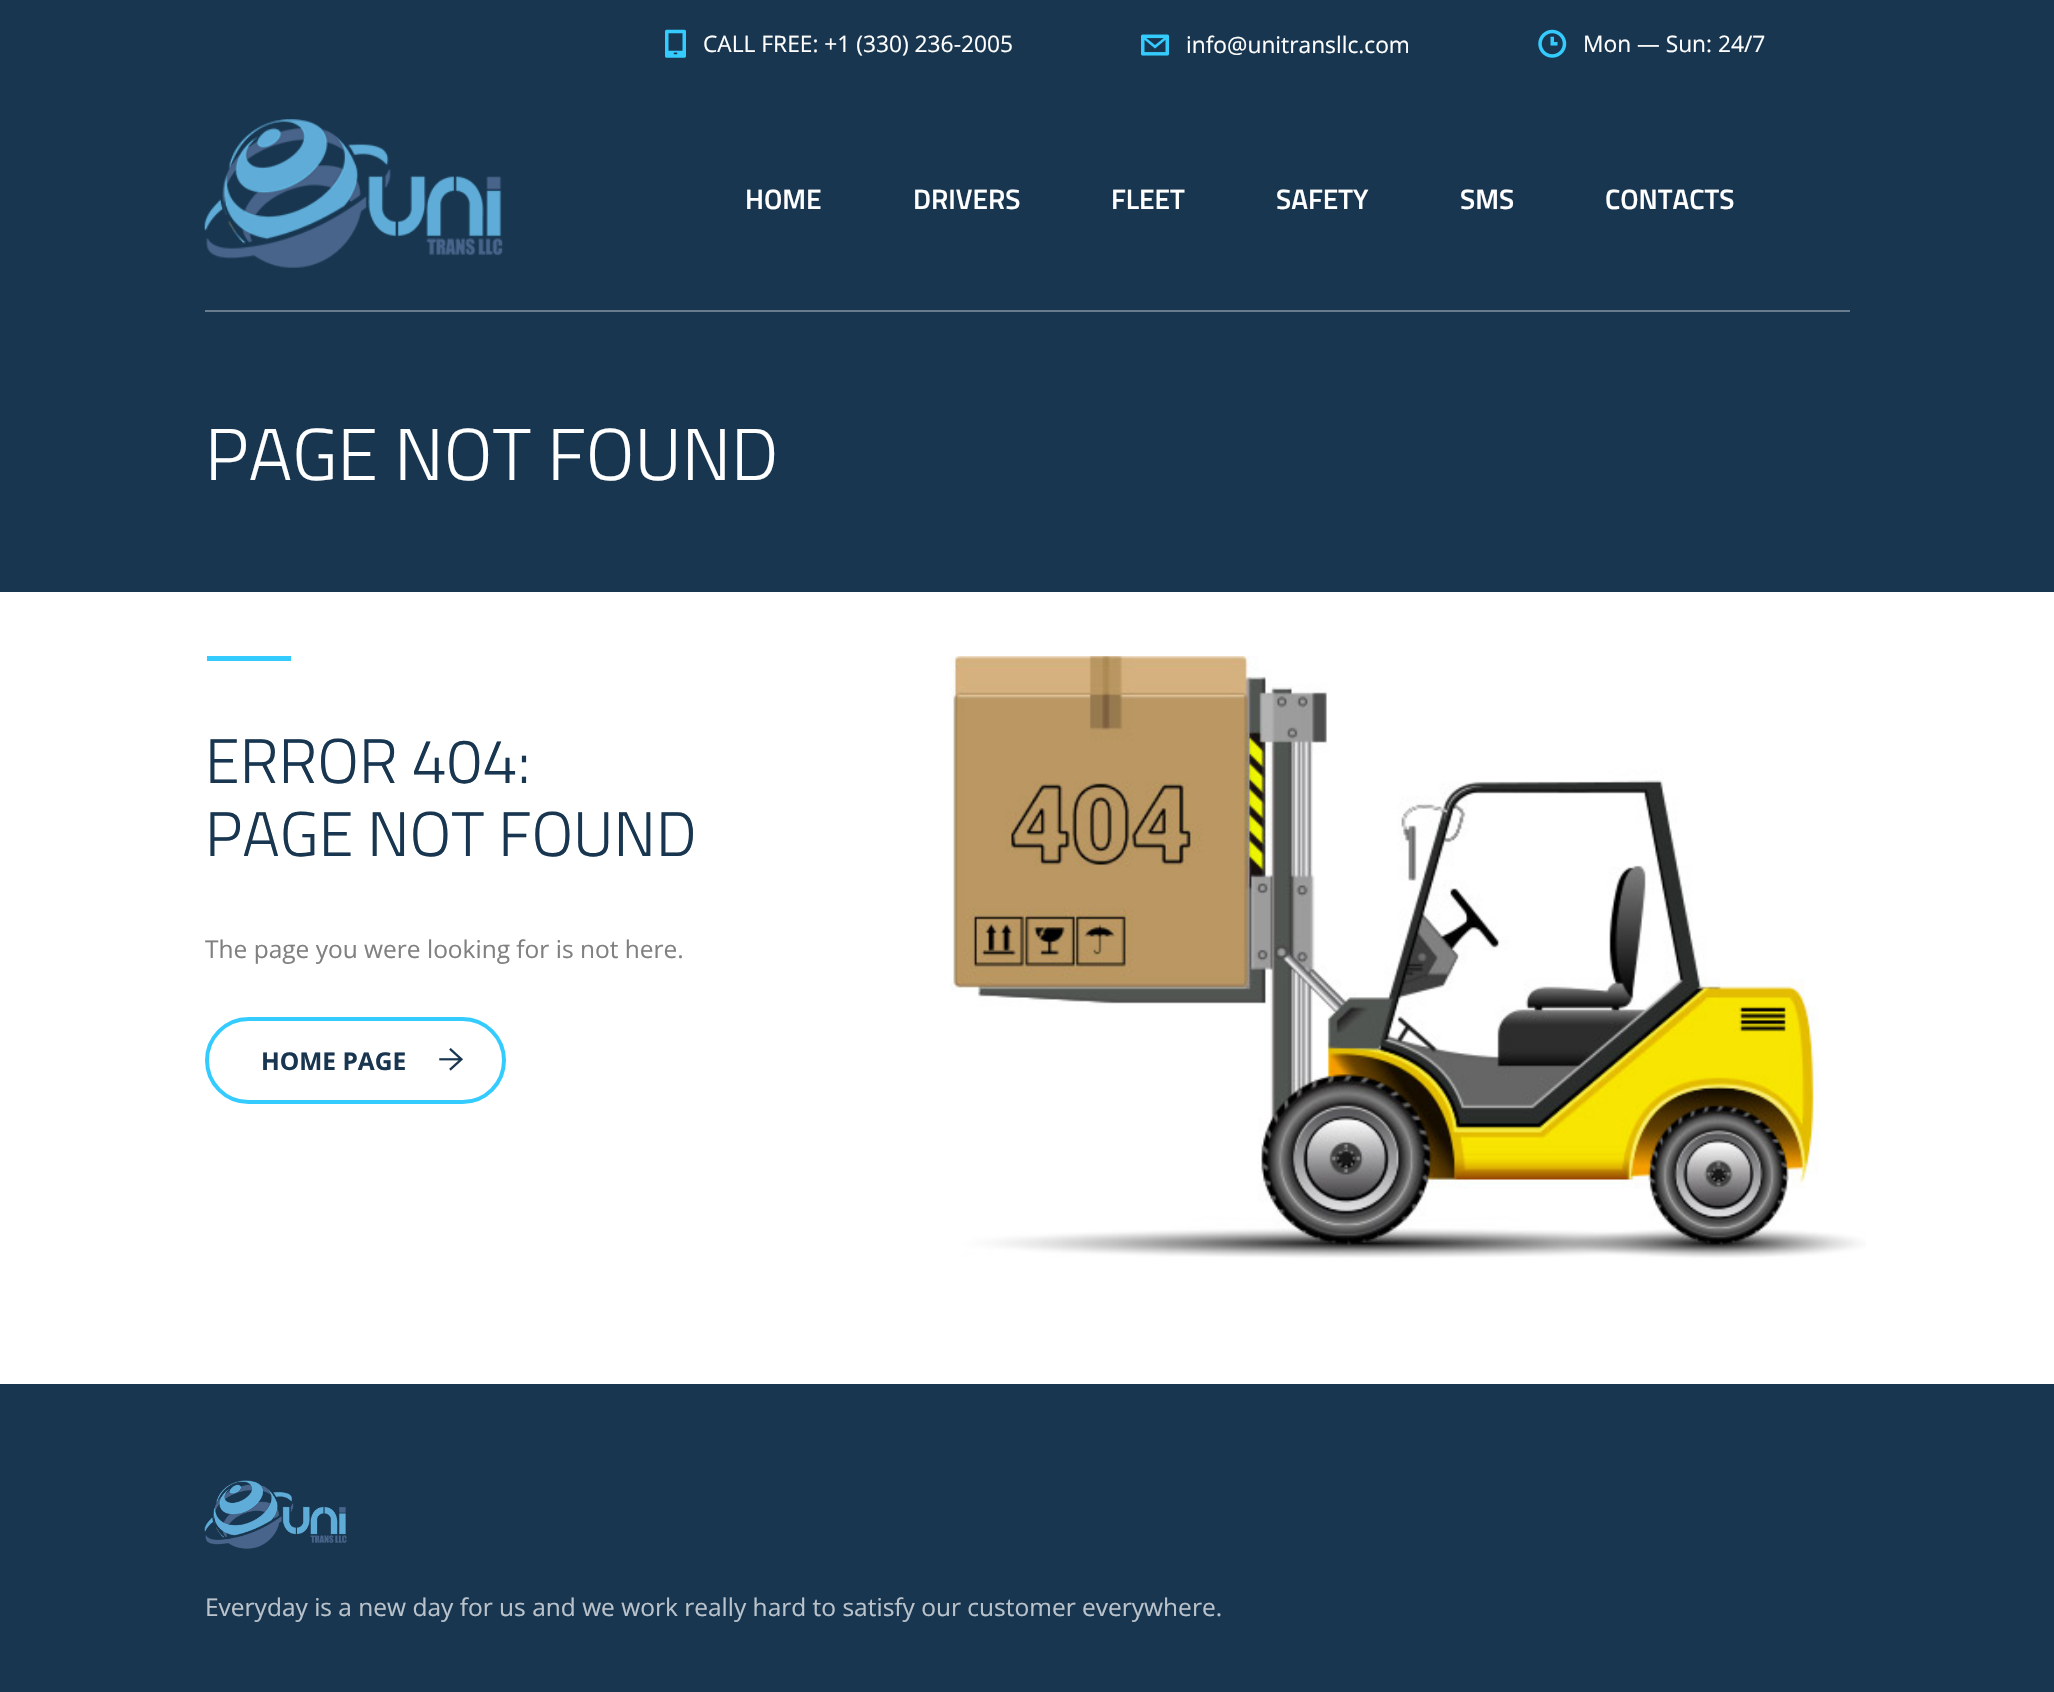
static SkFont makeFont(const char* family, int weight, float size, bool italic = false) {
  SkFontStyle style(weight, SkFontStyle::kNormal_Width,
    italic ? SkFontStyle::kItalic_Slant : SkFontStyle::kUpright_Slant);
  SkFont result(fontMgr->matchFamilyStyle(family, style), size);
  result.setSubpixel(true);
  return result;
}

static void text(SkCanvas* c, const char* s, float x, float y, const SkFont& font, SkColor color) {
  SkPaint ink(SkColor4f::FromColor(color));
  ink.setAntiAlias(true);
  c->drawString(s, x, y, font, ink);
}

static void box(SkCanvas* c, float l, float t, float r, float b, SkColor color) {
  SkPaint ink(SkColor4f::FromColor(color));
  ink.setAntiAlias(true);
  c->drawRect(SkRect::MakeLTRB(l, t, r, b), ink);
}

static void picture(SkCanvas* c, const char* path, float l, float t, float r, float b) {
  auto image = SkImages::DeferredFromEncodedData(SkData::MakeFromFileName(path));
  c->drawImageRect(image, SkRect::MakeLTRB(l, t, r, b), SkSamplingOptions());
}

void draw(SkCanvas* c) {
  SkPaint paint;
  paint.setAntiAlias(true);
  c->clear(0xffffffff);
  box(c, 0, 0, 2054, 592, 0xff183650);
  picture(c, "img_01.png", 665, 29, 686, 58);
  SkFont face1 = makeFont("Open Sans", 400, 22.75f);
  text(c, "CALL FREE: +1 (330) 236-2005", 703, 52, face1, 0xffffffff);
  picture(c, "img_02.png", 1141, 34, 1169, 56);
  text(c, "info@unitransllc.com", 1186, 53, face1, 0xffffffff);
  picture(c, "img_03.png", 1538, 29, 1567, 58);
  text(c, "Mon — Sun: 24/7", 1583, 52, face1, 0xffffffff);
  box(c, 205, 310, 1850, 312, 0xff697c8d);
  picture(c, "img_04.png", 204, 119, 503, 268);
  SkFont face2 = makeFont("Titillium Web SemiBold", 600, 28);
  text(c, "HOME", 745, 209, face2, 0xffffffff);
  text(c, "DRIVERS", 913, 209, face2, 0xffffffff);
  text(c, "FLEET", 1111, 209, face2, 0xffffffff);
  text(c, "SAFETY", 1276, 209, face2, 0xffffffff);
  text(c, "SMS", 1460, 209, face2, 0xffffffff);
  text(c, "CONTACTS", 1605, 209, face2, 0xffffffff);
  SkFont face3 = makeFont("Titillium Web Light", 300, 73.5f);
  text(c, "PAGE NOT FOUND", 205, 480, face3, 0xffffffff);
  box(c, 207, 656, 291, 661, 0xff34ccff);
  SkFont face4 = makeFont("Titillium Web Light", 300, 63);
  text(c, "ERROR 404:", 205, 783, face4, 0xff183650);
  text(c, "PAGE NOT FOUND", 205, 856, face4, 0xff183650);
  picture(c, "img_05.png", 950, 656, 1866, 1258);
  SkFont face5 = makeFont("Open Sans", 400, 24.5f);
  text(c, "The page you were looking for is not here.", 205, 958, face5, 0xff808080);
  paint.setStyle(SkPaint::kStroke_Style);
  paint.setStrokeWidth(4);
  paint.setColor(0xff34ccff);
  c->drawRoundRect(SkRect::MakeLTRB(207, 1019, 504, 1102), 41.5f, 41.5f, paint);
  SkFont face6 = makeFont("Open Sans", 700, 24.5f);
  text(c, "HOME PAGE", 261, 1070, face6, 0xff183650);
  picture(c, "img_06.png", 439, 1048, 463, 1071);
  box(c, 0, 1384, 2054, 1692, 0xff183650);
  picture(c, "img_07.png", 204, 1480, 347, 1549);
  text(c, "Everyday is a new day for us and we work really hard to satisfy our customer everywhere.", 205, 1616, face5, 0xffbac3cb);
}
